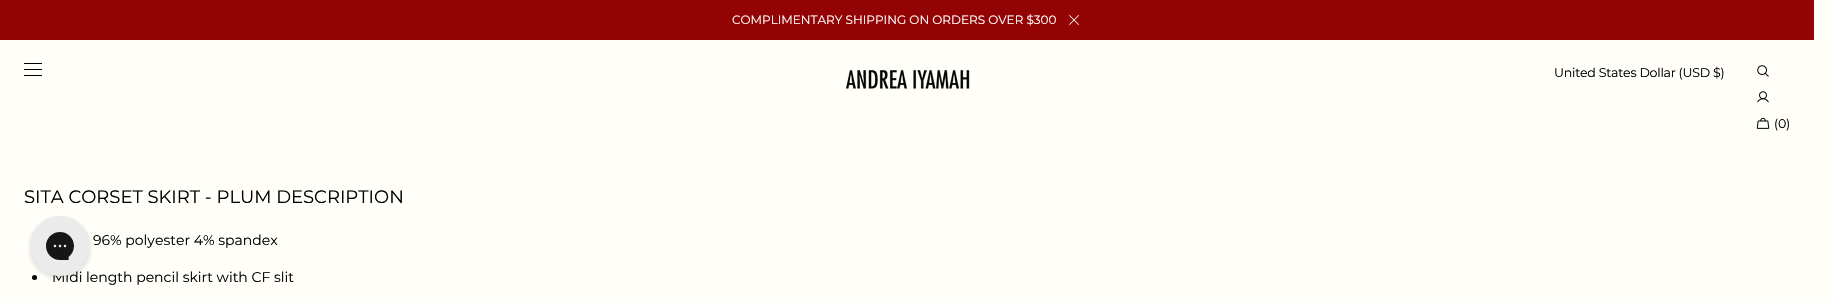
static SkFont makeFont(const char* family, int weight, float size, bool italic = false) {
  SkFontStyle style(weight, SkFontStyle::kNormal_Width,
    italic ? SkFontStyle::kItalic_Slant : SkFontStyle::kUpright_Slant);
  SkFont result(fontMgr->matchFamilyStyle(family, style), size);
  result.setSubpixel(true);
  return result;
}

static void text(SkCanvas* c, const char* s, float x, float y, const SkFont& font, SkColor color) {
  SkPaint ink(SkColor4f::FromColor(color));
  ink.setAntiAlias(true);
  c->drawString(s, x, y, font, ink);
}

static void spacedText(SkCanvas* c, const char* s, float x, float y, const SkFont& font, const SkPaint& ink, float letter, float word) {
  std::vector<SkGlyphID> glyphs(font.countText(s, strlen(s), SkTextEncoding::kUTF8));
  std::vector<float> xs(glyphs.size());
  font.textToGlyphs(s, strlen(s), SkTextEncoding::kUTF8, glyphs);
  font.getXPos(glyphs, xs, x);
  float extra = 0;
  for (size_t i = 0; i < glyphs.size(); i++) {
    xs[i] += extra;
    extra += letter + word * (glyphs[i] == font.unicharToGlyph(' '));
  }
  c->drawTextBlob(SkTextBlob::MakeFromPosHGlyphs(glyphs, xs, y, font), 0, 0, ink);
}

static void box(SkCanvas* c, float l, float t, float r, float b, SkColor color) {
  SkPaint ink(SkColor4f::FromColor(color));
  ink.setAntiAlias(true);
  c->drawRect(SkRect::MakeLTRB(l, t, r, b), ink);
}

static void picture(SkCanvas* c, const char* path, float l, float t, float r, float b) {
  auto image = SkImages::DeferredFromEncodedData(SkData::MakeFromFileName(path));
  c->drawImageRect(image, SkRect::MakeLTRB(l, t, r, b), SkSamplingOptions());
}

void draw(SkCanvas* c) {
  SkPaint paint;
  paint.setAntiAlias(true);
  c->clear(0xfffffef8);
  box(c, 0, 0, 1814, 40, 0xff940304);
  SkFont face1 = makeFont("Montserrat", 400, 12);
  text(c, "COMPLIMENTARY SHIPPING ON ORDERS OVER $300", 732, 24, face1, 0xffffffff);
  picture(c, "img_01.png", 1069, 15, 1079, 25);
  box(c, 24, 63, 42, 64, 0xff000000);
  box(c, 24, 69, 42, 70, 0xff000000);
  box(c, 24, 75, 42, 76, 0xff000000);
  picture(c, "img_02.png", 845, 70, 970, 89);
  SkFont face2 = makeFont("Montserrat", 400, 12.6f);
  paint.setColor(0xff000000);
  spacedText(c, "United States Dollar (USD $)", 1554, 77, face2, paint, -0.25f, 0);
  picture(c, "img_03.png", 1757, 65, 1769, 77);
  picture(c, "img_04.png", 1757, 91, 1769, 103);
  picture(c, "img_05.png", 1756, 117, 1770, 129);
  spacedText(c, "(0)", 1774, 128, face2, paint, -0.25f, 0);
  SkFont face3 = makeFont("Montserrat", 400, 18);
  text(c, "SITA CORSET SKIRT - PLUM DESCRIPTION", 24, 203, face3, 0xff000000);
  SkFont face4 = makeFont("Montserrat", 400, 14);
  text(c, "96% polyester 4% spandex", 93, 245, face4, 0xff000000);
  c->drawCircle(34.5f, 277.5f, 2.5f, paint);
  text(c, "Midi length pencil skirt with CF slit", 52, 282, face4, 0xff000000);
  picture(c, "img_06.png", 28, 216, 92, 280);
}
